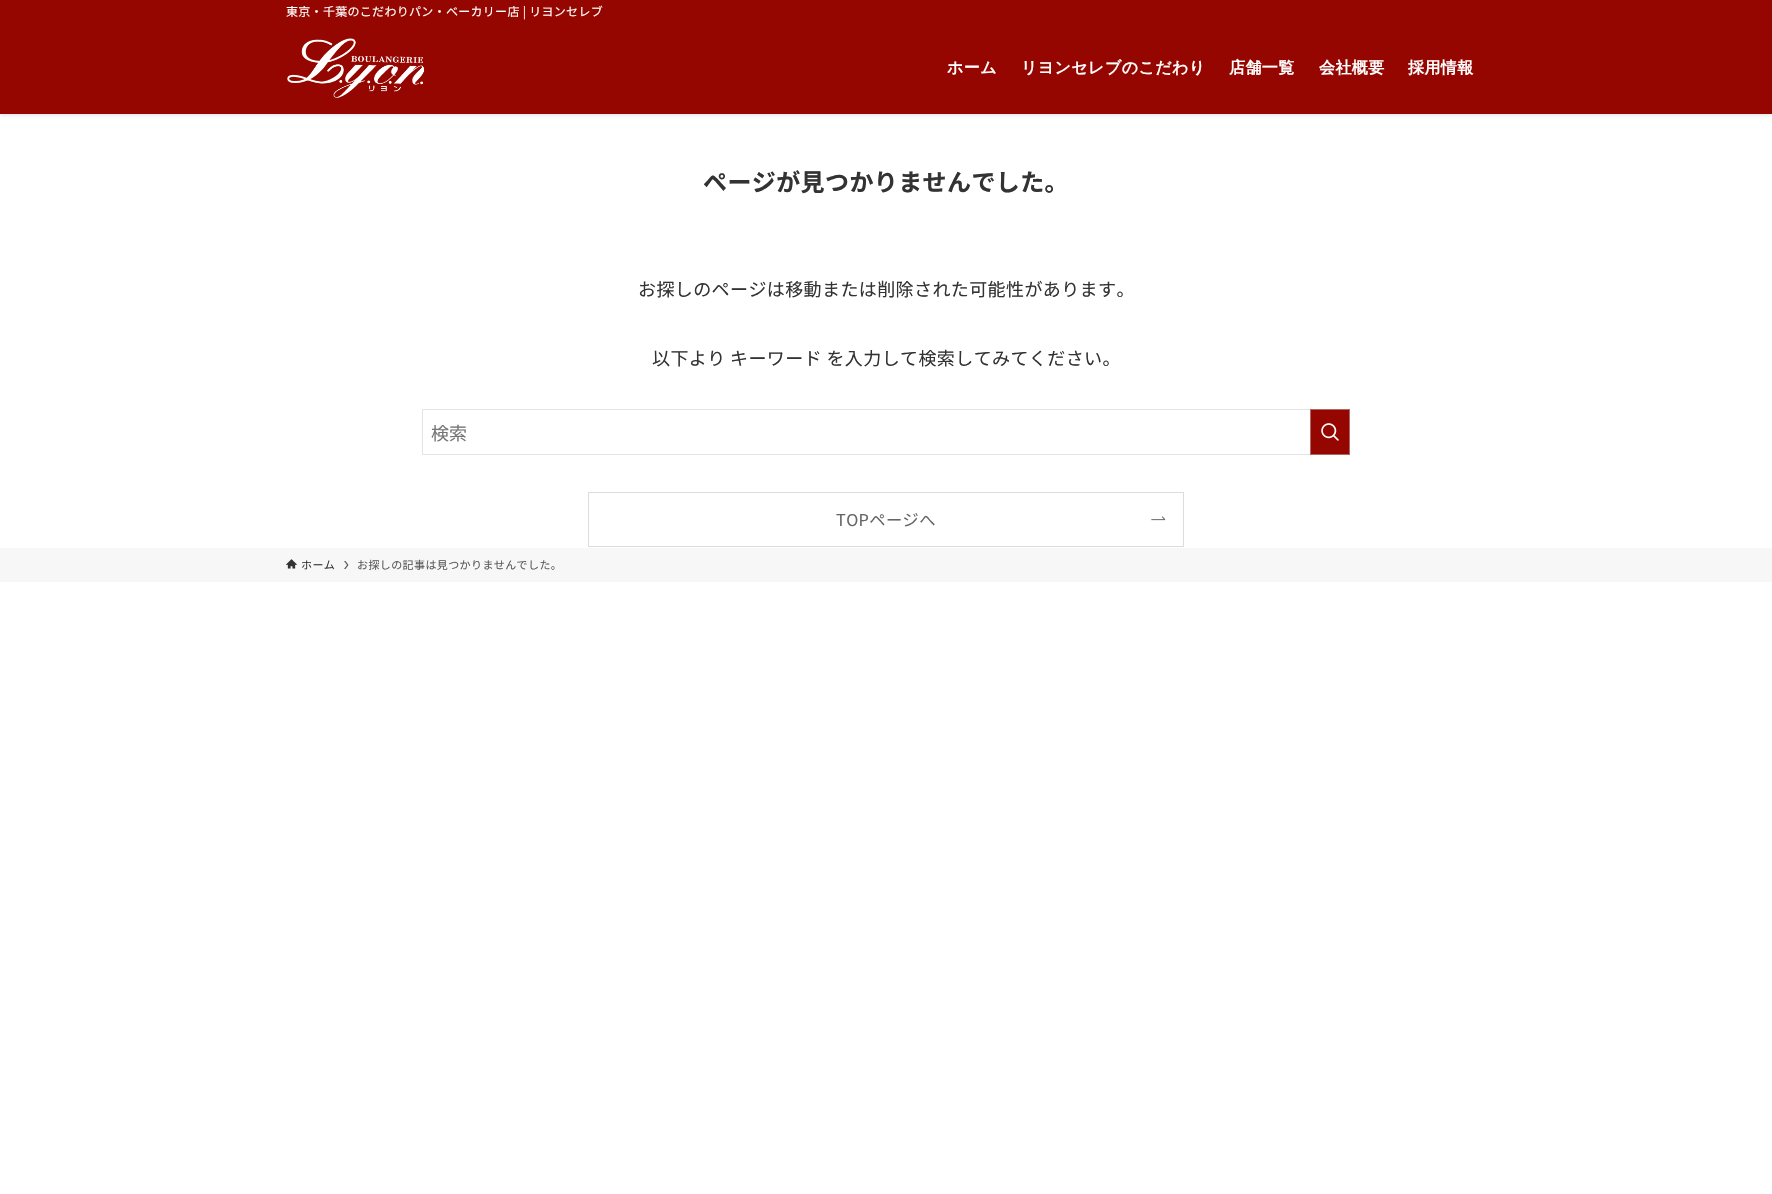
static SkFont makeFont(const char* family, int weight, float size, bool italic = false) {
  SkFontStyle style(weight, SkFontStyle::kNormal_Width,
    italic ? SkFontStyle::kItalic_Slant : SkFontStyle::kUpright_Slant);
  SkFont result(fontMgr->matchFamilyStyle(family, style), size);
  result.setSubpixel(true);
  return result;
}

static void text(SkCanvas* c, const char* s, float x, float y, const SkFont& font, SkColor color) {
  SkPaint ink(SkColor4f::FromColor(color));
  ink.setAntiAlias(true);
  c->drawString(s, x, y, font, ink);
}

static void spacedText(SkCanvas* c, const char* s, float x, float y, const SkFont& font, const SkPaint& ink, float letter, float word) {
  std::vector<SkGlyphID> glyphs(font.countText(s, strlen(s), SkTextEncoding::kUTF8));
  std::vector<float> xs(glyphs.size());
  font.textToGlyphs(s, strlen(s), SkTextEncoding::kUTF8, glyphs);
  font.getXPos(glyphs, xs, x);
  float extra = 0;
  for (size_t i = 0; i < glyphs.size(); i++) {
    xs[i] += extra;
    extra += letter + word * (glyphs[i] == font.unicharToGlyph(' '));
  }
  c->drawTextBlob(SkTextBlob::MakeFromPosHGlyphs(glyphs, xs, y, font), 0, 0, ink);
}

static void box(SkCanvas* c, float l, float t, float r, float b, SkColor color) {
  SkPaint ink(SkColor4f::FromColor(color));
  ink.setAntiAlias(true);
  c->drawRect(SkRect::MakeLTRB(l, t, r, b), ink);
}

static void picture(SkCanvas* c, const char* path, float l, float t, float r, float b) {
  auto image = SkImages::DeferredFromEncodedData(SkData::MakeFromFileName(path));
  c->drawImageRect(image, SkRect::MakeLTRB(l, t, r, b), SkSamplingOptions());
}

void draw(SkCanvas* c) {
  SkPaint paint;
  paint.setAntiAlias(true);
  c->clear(0xffffffff);
  paint.setColor(0x1f000000);
  paint.setMaskFilter(SkMaskFilter::MakeBlur(kNormal_SkBlurStyle, 2));
  c->drawRect(SkRect::MakeLTRB(0, 1, 1772, 115), paint);
  paint.setMaskFilter(nullptr);
  box(c, 0, 0, 1772, 114, 0xff960600);
  SkFont face1 = makeFont("Noto Sans JP", 400, 12);
  paint.setColor(0xffffffff);
  spacedText(c, "東京・千葉のこだわりパン・ベーカリー店 | リヨンセレブ", 286, 16, face1, paint, 0.3f, 0);
  picture(c, "img_01.png", 287, 38, 425, 98);
  SkFont face2 = makeFont("WenQuanYi Zen Hei", 700, 16);
  spacedText(c, "ホーム", 947, 73, face2, paint, 0.4f, 0);
  spacedText(c, "リヨンセレブのこだわり", 1021, 73, face2, paint, 0.4f, 0);
  spacedText(c, "店舗一覧", 1229, 73, face2, paint, 0.4f, 0);
  spacedText(c, "会社概要", 1319, 73, face2, paint, 0.4f, 0);
  spacedText(c, "採用情報", 1408, 73, face2, paint, 0.4f, 0);
  SkFont face3 = makeFont("Noto Sans JP", 700, 24);
  paint.setColor(0xff333333);
  spacedText(c, "ページが見つかりませんでした。", 703, 191, face3, paint, 0.4f, 0);
  SkFont face4 = makeFont("Noto Sans JP", 400, 18);
  spacedText(c, "お探しのページは移動または削除された可能性があります。", 638, 296, face4, paint, 0.4f, 0);
  spacedText(c, "以下より キーワード を入力して検索してみてください。", 652, 365, face4, paint, 0.4f, 0);
  paint.setStyle(SkPaint::kStroke_Style);
  paint.setStrokeWidth(1);
  paint.setColor(0xffe3e3e3);
  c->drawRect(SkRect::MakeLTRB(422.5f, 409.5f, 1349.5f, 454.5f), paint);
  text(c, "検索", 431, 440, face4, 0xff757575);
  paint.setStyle(SkPaint::kFill_Style);
  paint.setColor(0xff960600);
  c->drawRect(SkRect::MakeLTRB(1310.5f, 409.5f, 1349.5f, 454.5f), paint);
  paint.setStyle(SkPaint::kStroke_Style);
  paint.setColor(0xffaf6764);
  c->drawRect(SkRect::MakeLTRB(1310.5f, 409.5f, 1349.5f, 454.5f), paint);
  picture(c, "img_02.png", 1321, 423, 1339, 441);
  paint.setColor(0xffdcdcdc);
  c->drawRect(SkRect::MakeLTRB(588.5f, 492.5f, 1183.5f, 546.5f), paint);
  SkFont face5 = makeFont("Noto Sans JP", 400, 16.25f);
  paint.setStyle(SkPaint::kFill_Style);
  paint.setColor(0xff666666);
  spacedText(c, "TOPページへ", 836, 526, face5, paint, 0.4f, 0);
  picture(c, "img_03.png", 1151, 516, 1166, 521);
  box(c, 0, 548, 1772, 582, 0xfff7f7f7);
  picture(c, "img_04.png", 286, 559, 297, 569);
  SkFont face6 = makeFont("Noto Sans JP", 400, 11);
  paint.setColor(0xff333333);
  spacedText(c, "ホーム", 301, 569, face6, paint, 0.4f, 0);
  paint.setColor(0xff5a5a5a);
  c->drawPath(SkPathBuilder().moveTo(345.5f, 561).lineTo(344, 561).lineTo(347, 565).lineTo(344, 569).lineTo(345.5f, 569).lineTo(348.5f, 565).close().detach(), paint);
  spacedText(c, "お探しの記事は見つかりませんでした。", 357, 569, face6, paint, 0.4f, 0);
}
